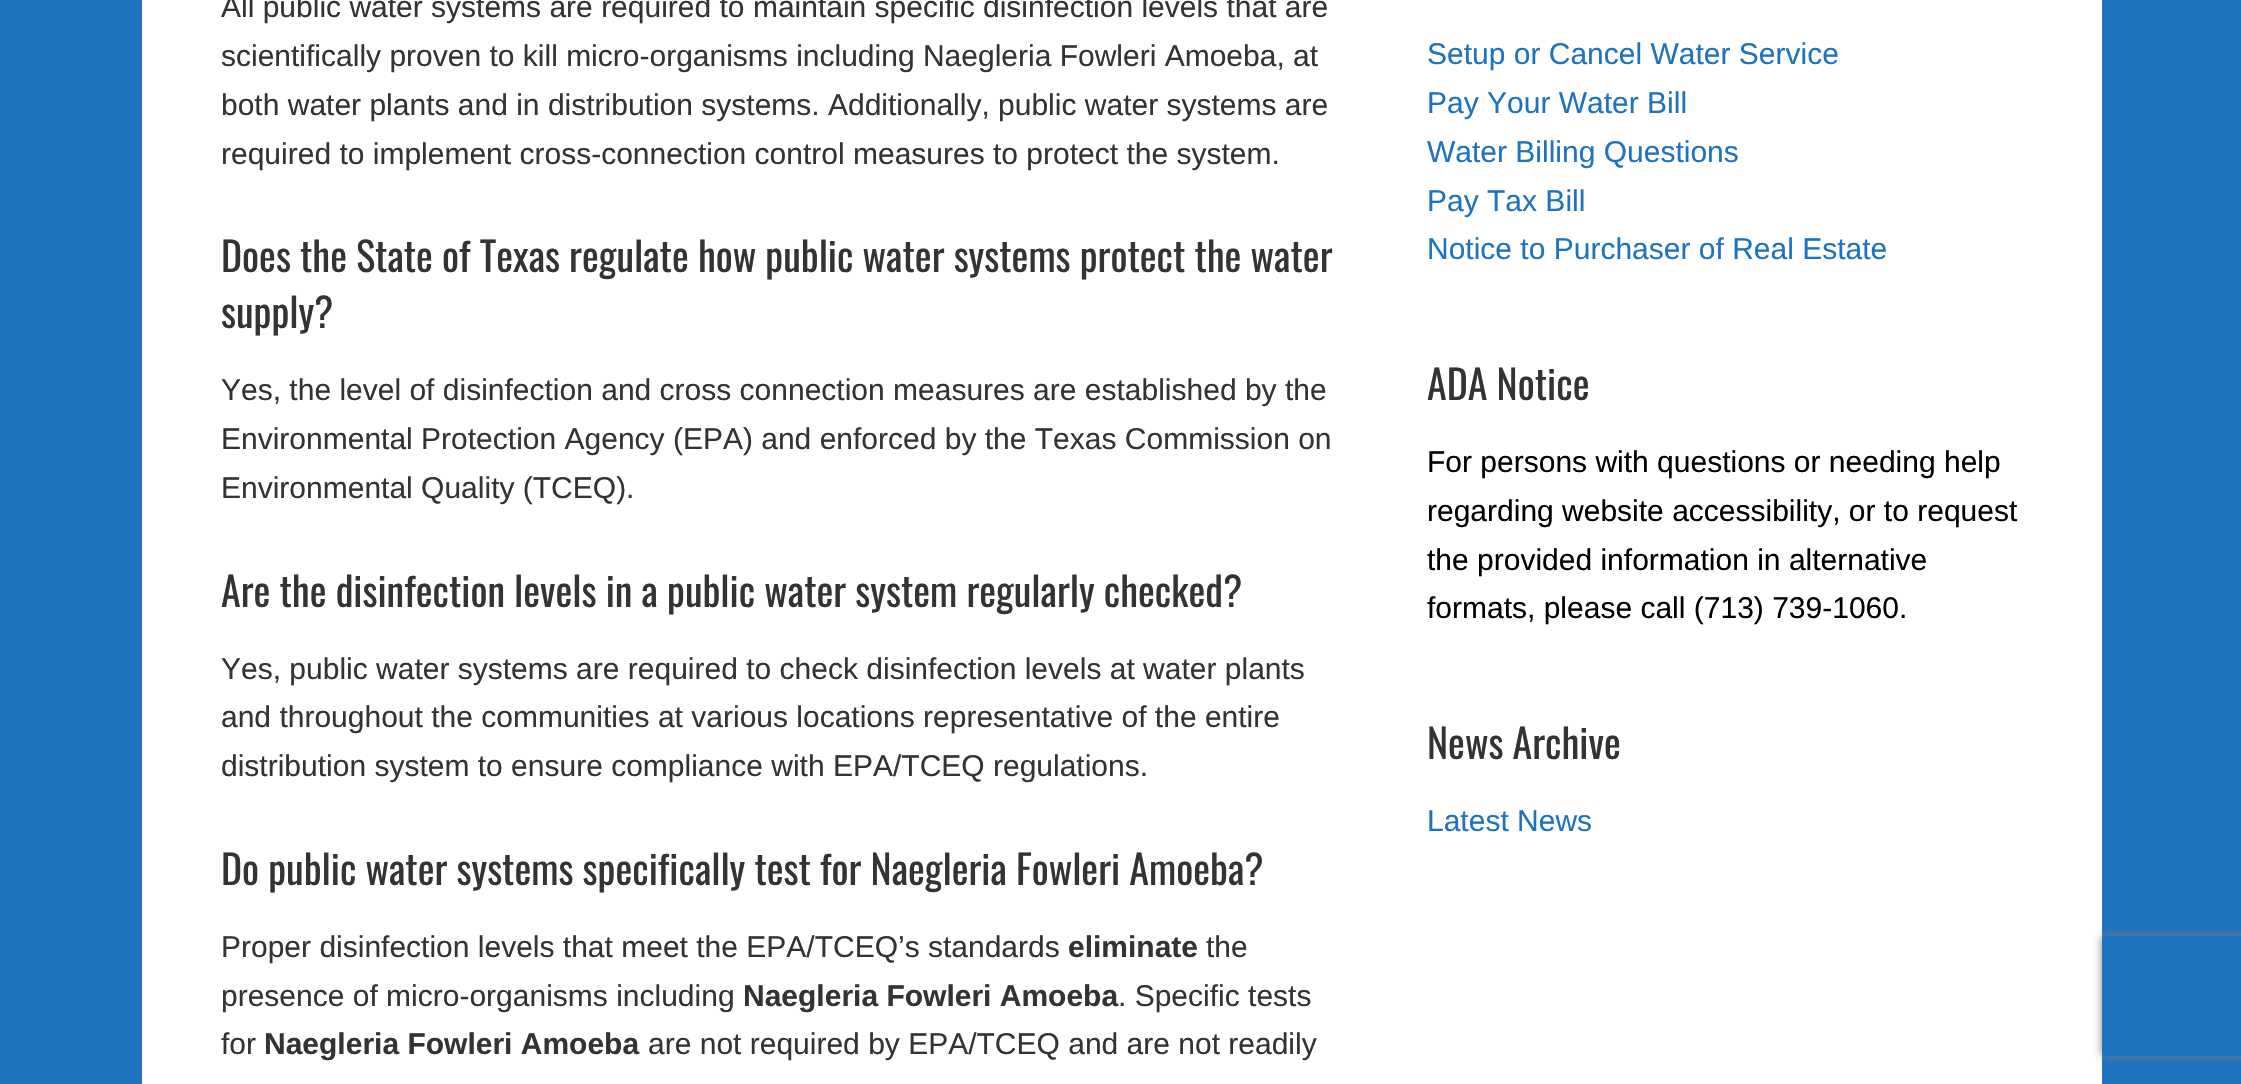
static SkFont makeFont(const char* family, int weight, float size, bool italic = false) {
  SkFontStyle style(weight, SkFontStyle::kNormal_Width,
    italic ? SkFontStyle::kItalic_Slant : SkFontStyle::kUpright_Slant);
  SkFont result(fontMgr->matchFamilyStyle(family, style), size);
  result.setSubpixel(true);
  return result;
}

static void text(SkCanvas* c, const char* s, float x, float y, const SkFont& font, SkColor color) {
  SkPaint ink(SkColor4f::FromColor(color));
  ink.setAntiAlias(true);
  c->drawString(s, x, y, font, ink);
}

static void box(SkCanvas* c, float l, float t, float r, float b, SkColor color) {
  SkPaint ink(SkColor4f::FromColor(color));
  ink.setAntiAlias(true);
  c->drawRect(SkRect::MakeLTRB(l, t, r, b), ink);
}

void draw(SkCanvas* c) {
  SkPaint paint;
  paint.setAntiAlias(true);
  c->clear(0xff1e73be);
  box(c, 142, 0, 2102, 1084, 0xffffffff);
  SkFont face1 = makeFont("Liberation Sans", 400, 30);
  text(c, "All public water systems are required to maintain specific disinfection levels that are", 221, 17, face1, 0xff333333);
  text(c, "scientifically proven to kill micro-organisms including Naegleria Fowleri Amoeba, at", 221, 66, face1, 0xff333333);
  text(c, "both water plants and in distribution systems. Additionally, public water systems are", 221, 115, face1, 0xff333333);
  text(c, "required to implement cross-connection control measures to protect the system.", 221, 164, face1, 0xff333333);
  SkFont face2 = makeFont("Oswald", 400, 40);
  text(c, "Does the State of Texas regulate how public water systems protect the water", 221, 272, face2, 0xff333333);
  text(c, "supply?", 221, 328, face2, 0xff333333);
  text(c, "Yes, the level of disinfection and cross connection measures are established by the", 221, 400, face1, 0xff333333);
  text(c, "Environmental Protection Agency (EPA) and enforced by the Texas Commission on", 221, 449, face1, 0xff333333);
  text(c, "Environmental Quality (TCEQ).", 221, 498, face1, 0xff333333);
  text(c, "Are the disinfection levels in a public water system regularly checked?", 221, 607, face2, 0xff333333);
  text(c, "Yes, public water systems are required to check disinfection levels at water plants", 221, 679, face1, 0xff333333);
  text(c, "and throughout the communities at various locations representative of the entire", 221, 727, face1, 0xff333333);
  text(c, "distribution system to ensure compliance with EPA/TCEQ regulations.", 221, 776, face1, 0xff333333);
  text(c, "Do public water systems specifically test for Naegleria Fowleri Amoeba?", 221, 885, face2, 0xff333333);
  text(c, "Proper disinfection levels that meet the EPA/TCEQ’s standards", 221, 957, face1, 0xff333333);
  SkFont face3 = makeFont("Liberation Sans", 700, 30);
  text(c, "eliminate", 1068, 957, face3, 0xff333333);
  text(c, "the", 1206, 957, face1, 0xff333333);
  text(c, "presence of micro-organisms including", 221, 1006, face1, 0xff333333);
  text(c, "Naegleria Fowleri Amoeba", 743, 1006, face3, 0xff333333);
  text(c, ". Specific tests", 1118, 1006, face1, 0xff333333);
  text(c, "for", 221, 1054, face1, 0xff333333);
  text(c, "Naegleria Fowleri Amoeba", 264, 1054, face3, 0xff333333);
  text(c, "are not required by EPA/TCEQ and are not readily", 648, 1054, face1, 0xff333333);
  text(c, "Setup or Cancel Water Service", 1427, 64, face1, 0xff1e73be);
  text(c, "Pay Your Water Bill", 1427, 113, face1, 0xff1e73be);
  text(c, "Water Billing Questions", 1427, 162, face1, 0xff1e73be);
  text(c, "Pay Tax Bill", 1427, 211, face1, 0xff1e73be);
  text(c, "Notice to Purchaser of Real Estate", 1427, 259, face1, 0xff1e73be);
  text(c, "ADA Notice", 1427, 400, face2, 0xff333333);
  text(c, "For persons with questions or needing help", 1427, 472, face1, 0xff000000);
  text(c, "regarding website accessibility, or to request", 1427, 521, face1, 0xff000000);
  text(c, "the provided information in alternative", 1427, 570, face1, 0xff000000);
  text(c, "formats, please call (713) 739-1060.", 1427, 618, face1, 0xff000000);
  text(c, "News Archive", 1427, 759, face2, 0xff333333);
  text(c, "Latest News", 1427, 831, face1, 0xff1e73be);
  c->save();
  c->clipPath(SkPathBuilder(SkPathFillType::kEvenOdd).moveTo(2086, 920).lineTo(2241, 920).lineTo(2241, 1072).lineTo(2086, 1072).close().moveTo(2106, 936).lineTo(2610, 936).cubicTo(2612, 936, 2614, 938, 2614, 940).lineTo(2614, 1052).cubicTo(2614, 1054, 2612, 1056, 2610, 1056).lineTo(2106, 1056).cubicTo(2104, 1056, 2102, 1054, 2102, 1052).lineTo(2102, 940).cubicTo(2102, 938, 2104, 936, 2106, 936).close().detach(), true);
  paint.setColor(0xff808080);
  paint.setMaskFilter(SkMaskFilter::MakeBlur(kNormal_SkBlurStyle, 5));
  c->drawRoundRect(SkRect::MakeLTRB(2102, 936, 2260, 1056), 4, 4, paint);
  paint.setMaskFilter(nullptr);
  c->restore();
}
